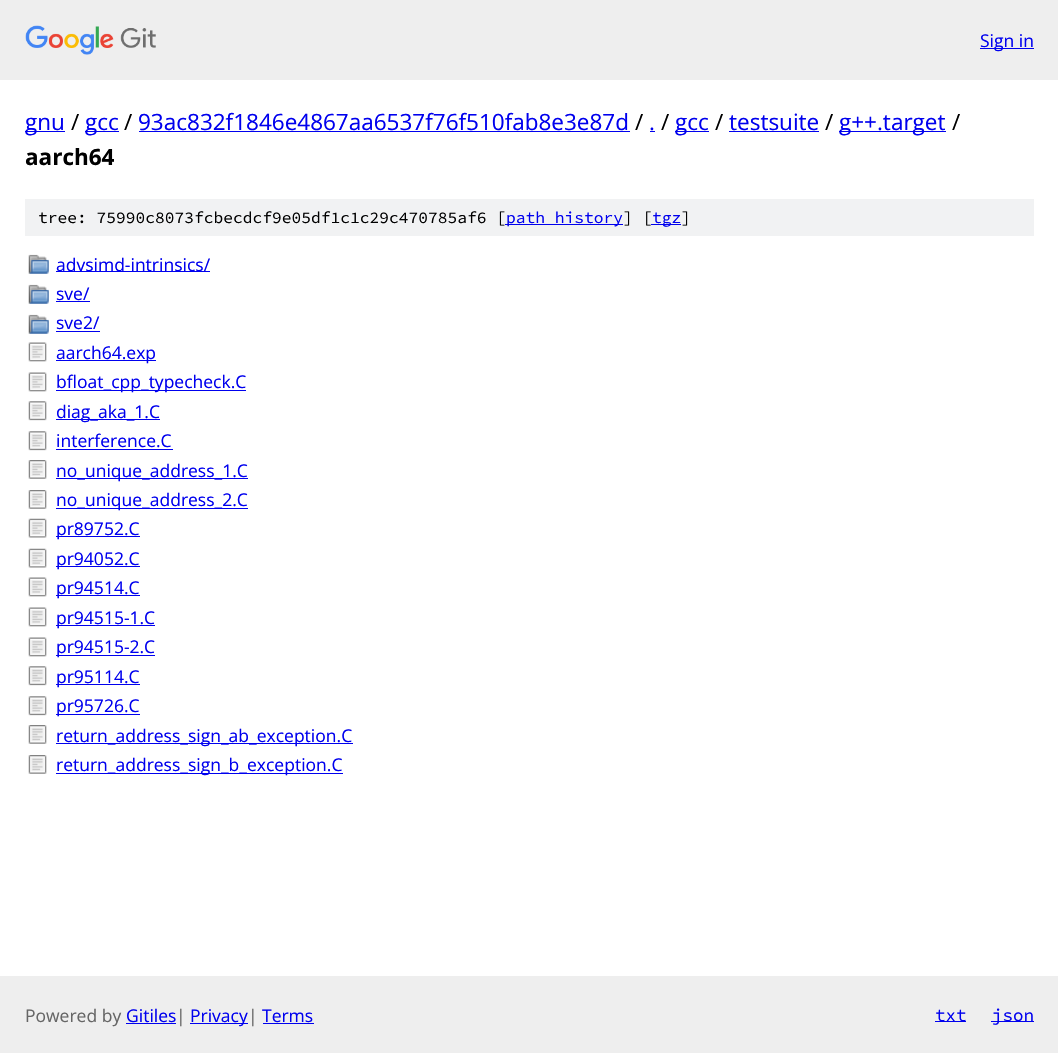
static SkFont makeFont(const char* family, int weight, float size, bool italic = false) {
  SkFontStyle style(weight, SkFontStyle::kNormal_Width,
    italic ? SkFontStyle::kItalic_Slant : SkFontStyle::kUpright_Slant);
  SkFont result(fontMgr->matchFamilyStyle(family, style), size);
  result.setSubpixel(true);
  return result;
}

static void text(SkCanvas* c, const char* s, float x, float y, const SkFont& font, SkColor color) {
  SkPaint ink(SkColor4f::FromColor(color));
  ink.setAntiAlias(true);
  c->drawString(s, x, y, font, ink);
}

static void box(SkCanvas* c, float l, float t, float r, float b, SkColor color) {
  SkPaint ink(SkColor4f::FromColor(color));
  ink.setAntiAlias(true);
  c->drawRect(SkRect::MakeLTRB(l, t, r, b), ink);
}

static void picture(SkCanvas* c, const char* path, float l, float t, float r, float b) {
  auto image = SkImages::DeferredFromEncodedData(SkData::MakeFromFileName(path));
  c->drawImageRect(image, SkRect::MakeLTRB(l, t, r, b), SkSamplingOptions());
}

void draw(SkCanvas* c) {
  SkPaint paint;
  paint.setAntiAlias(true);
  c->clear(0xffffffff);
  box(c, 0, 0, 1058, 80, 0xffeeeeee);
  picture(c, "img_01.png", 25, 25, 156, 55);
  box(c, 980, 48, 1034, 49, 0xff0000ee);
  SkFont face1 = makeFont("Open Sans", 400, 17.5f);
  text(c, "Sign in", 980, 47, face1, 0xff0000ee);
  box(c, 25, 131, 65, 132, 0xff0000ee);
  SkFont face2 = makeFont("Open Sans", 400, 22.5f);
  text(c, "gnu", 25, 130, face2, 0xff0000ee);
  text(c, "/", 71, 130, face2, 0xff000000);
  box(c, 85, 131, 119, 132, 0xff0000ee);
  text(c, "gcc", 85, 130, face2, 0xff0000ee);
  text(c, "/", 124, 130, face2, 0xff000000);
  text(c, "93ac832f1846e4867aa6537f76f510fab8e3e87d", 138, 130, face2, 0xff0000ee);
  box(c, 139, 131, 630, 132, 0xff0000ee);
  text(c, "/", 635, 130, face2, 0xff000000);
  text(c, ".", 649, 130, face2, 0xff0000ee);
  box(c, 650, 131, 655, 132, 0xff0000ee);
  text(c, "/", 661, 130, face2, 0xff000000);
  box(c, 675, 131, 709, 132, 0xff0000ee);
  text(c, "gcc", 675, 130, face2, 0xff0000ee);
  text(c, "/", 715, 130, face2, 0xff000000);
  text(c, "testsuite", 729, 130, face2, 0xff0000ee);
  box(c, 729, 131, 819, 132, 0xff0000ee);
  text(c, "/", 825, 130, face2, 0xff000000);
  box(c, 839, 131, 946, 132, 0xff0000ee);
  text(c, "g++.target", 839, 130, face2, 0xff0000ee);
  text(c, "/", 952, 130, face2, 0xff000000);
  SkFont face3 = makeFont("Open Sans", 700, 22.5f);
  text(c, "aarch64", 25, 165, face3, 0xff000000);
  box(c, 25, 199, 1034, 236, 0xfff1f2f3);
  SkFont face4 = makeFont("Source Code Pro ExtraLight", 200, 16.25f);
  text(c, "tree: 75990c8073fcbecdcf9e05df1c1c29c470785af6 [", 38, 223, face4, 0xff000000);
  box(c, 505, 224, 623, 225, 0xff0000ee);
  text(c, "path history", 506, 223, face4, 0xff0000ee);
  text(c, "] [", 623, 223, face4, 0xff000000);
  box(c, 651, 224, 681, 225, 0xff0000ee);
  text(c, "tgz", 652, 223, face4, 0xff0000ee);
  text(c, "]", 681, 223, face4, 0xff000000);
  picture(c, "img_02.png", 28, 254, 49, 274);
  box(c, 56, 271, 210, 272, 0xff0000ee);
  text(c, "advsimd-intrinsics/", 56, 271, face1, 0xff0000ee);
  picture(c, "img_03.png", 28, 284, 49, 304);
  text(c, "sve/", 56, 300, face1, 0xff0000ee);
  box(c, 56, 301, 90, 302, 0xff0000ee);
  picture(c, "img_02.png", 28, 314, 49, 334);
  text(c, "sve2/", 56, 329, face1, 0xff0000ee);
  box(c, 56, 331, 100, 332, 0xff0000ee);
  picture(c, "img_04.png", 28, 342, 47, 362);
  box(c, 56, 360, 156, 361, 0xff0000ee);
  text(c, "aarch64.exp", 56, 359, face1, 0xff0000ee);
  picture(c, "img_04.png", 28, 372, 47, 392);
  box(c, 56, 390, 246, 391, 0xff0000ee);
  text(c, "bfloat_cpp_typecheck.C", 56, 388, face1, 0xff0000ee);
  picture(c, "img_05.png", 28, 401, 47, 421);
  box(c, 56, 419, 160, 420, 0xff0000ee);
  text(c, "diag_aka_1.C", 56, 418, face1, 0xff0000ee);
  picture(c, "img_05.png", 28, 431, 47, 451);
  text(c, "interference.C", 56, 447, face1, 0xff0000ee);
  box(c, 56, 449, 173, 450, 0xff0000ee);
  picture(c, "img_06.png", 28, 460, 47, 479);
  box(c, 56, 478, 248, 479, 0xff0000ee);
  text(c, "no_unique_address_1.C", 56, 477, face1, 0xff0000ee);
  picture(c, "img_06.png", 28, 490, 47, 509);
  box(c, 56, 508, 248, 509, 0xff0000ee);
  text(c, "no_unique_address_2.C", 56, 506, face1, 0xff0000ee);
  picture(c, "img_07.png", 28, 518, 47, 538);
  box(c, 56, 536, 140, 537, 0xff0000ee);
  text(c, "pr89752.C", 56, 535, face1, 0xff0000ee);
  picture(c, "img_07.png", 28, 548, 47, 568);
  box(c, 56, 566, 140, 567, 0xff0000ee);
  text(c, "pr94052.C", 56, 565, face1, 0xff0000ee);
  picture(c, "img_08.png", 28, 577, 47, 597);
  box(c, 56, 595, 140, 596, 0xff0000ee);
  text(c, "pr94514.C", 56, 594, face1, 0xff0000ee);
  picture(c, "img_04.png", 28, 607, 47, 627);
  box(c, 56, 625, 155, 626, 0xff0000ee);
  text(c, "pr94515-1.C", 56, 624, face1, 0xff0000ee);
  picture(c, "img_04.png", 28, 637, 47, 657);
  box(c, 56, 655, 155, 656, 0xff0000ee);
  text(c, "pr94515-2.C", 56, 653, face1, 0xff0000ee);
  picture(c, "img_05.png", 28, 666, 47, 686);
  box(c, 56, 684, 140, 685, 0xff0000ee);
  text(c, "pr95114.C", 56, 683, face1, 0xff0000ee);
  picture(c, "img_05.png", 28, 696, 47, 716);
  box(c, 56, 714, 140, 715, 0xff0000ee);
  text(c, "pr95726.C", 56, 712, face1, 0xff0000ee);
  picture(c, "img_06.png", 28, 725, 47, 744);
  box(c, 56, 743, 353, 744, 0xff0000ee);
  text(c, "return_address_sign_ab_exception.C", 56, 742, face1, 0xff0000ee);
  picture(c, "img_06.png", 28, 755, 47, 774);
  box(c, 56, 773, 343, 774, 0xff0000ee);
  text(c, "return_address_sign_b_exception.C", 56, 771, face1, 0xff0000ee);
  box(c, 0, 976, 1058, 1053, 0xffeeeeee);
  text(c, "Powered by", 25, 1022, face1, 0xff666666);
  text(c, "Gitiles", 126, 1022, face1, 0xff0000ee);
  box(c, 126, 1023, 176, 1024, 0xff0000ee);
  text(c, "|", 176, 1022, face1, 0xff666666);
  box(c, 190, 1023, 248, 1024, 0xff0000ee);
  text(c, "Privacy", 190, 1022, face1, 0xff0000ee);
  text(c, "|", 248, 1022, face1, 0xff666666);
  text(c, "Terms", 262, 1022, face1, 0xff0000ee);
  box(c, 263, 1023, 314, 1024, 0xff0000ee);
  box(c, 935, 1021, 966, 1022, 0xff0000ee);
  SkFont face5 = makeFont("Source Code Pro ExtraLight", 200, 17.5f);
  text(c, "txt", 935, 1021, face5, 0xff0000ee);
  box(c, 991, 1021, 1034, 1022, 0xff0000ee);
  text(c, "json", 992, 1021, face5, 0xff0000ee);
}
